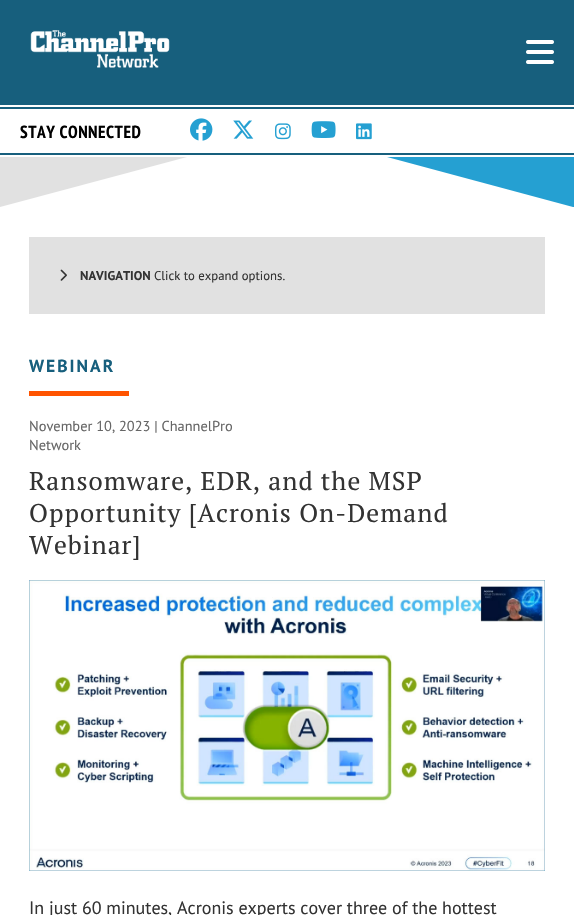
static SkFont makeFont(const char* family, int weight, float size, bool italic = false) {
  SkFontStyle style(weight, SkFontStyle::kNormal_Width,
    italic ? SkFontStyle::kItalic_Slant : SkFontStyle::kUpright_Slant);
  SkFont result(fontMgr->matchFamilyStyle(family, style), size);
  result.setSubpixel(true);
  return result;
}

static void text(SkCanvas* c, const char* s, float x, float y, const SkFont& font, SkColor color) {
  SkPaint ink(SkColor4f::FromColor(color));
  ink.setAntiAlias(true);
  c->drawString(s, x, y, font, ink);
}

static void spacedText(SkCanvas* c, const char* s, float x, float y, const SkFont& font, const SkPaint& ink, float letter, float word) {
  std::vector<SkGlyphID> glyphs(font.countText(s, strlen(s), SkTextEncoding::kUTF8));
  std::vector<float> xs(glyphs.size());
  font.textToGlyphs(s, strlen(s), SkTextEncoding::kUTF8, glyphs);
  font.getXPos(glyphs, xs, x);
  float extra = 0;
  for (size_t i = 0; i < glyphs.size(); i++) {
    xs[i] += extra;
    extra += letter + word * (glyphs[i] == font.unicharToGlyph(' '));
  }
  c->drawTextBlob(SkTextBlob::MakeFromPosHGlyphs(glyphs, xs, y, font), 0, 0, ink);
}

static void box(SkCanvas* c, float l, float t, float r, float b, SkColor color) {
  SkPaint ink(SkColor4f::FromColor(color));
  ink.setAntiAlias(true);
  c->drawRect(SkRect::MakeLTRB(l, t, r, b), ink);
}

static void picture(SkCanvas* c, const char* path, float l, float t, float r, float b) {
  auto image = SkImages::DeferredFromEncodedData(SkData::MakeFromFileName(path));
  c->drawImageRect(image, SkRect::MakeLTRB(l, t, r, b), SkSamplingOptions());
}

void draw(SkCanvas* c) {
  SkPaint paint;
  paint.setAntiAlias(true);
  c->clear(0xffffffff);
  box(c, 0, 0, 574, 105, 0xff175f7d);
  picture(c, "img_01.png", 30, 30, 170, 68);
  picture(c, "img_02.png", 526, 40, 554, 64);
  box(c, 0, 107, 574, 109, 0xff175f7d);
  box(c, 0, 153, 574, 155, 0xff175f7d);
  SkFont face1 = makeFont("PT Sans Narrow", 700, 17.5f);
  paint.setColor(0xff000000);
  spacedText(c, "STAY CONNECTED", 20, 138, face1, paint, 0.5f, 0);
  picture(c, "img_03.png", 190, 118, 213, 141);
  picture(c, "img_04.png", 233, 120, 254, 139);
  picture(c, "img_05.png", 275, 123, 291, 140);
  picture(c, "img_06.png", 311, 121, 336, 138);
  picture(c, "img_07.png", 356, 123, 372, 140);
  paint.setColor(0xffe1e1e1);
  c->drawPath(SkPathBuilder().moveTo(0, 157).lineTo(0, 207).lineTo(187, 157).close().detach(), paint);
  paint.setColor(0xff25a0d2);
  c->drawPath(SkPathBuilder().moveTo(387, 157).lineTo(574, 157).lineTo(574, 207).lineTo(573, 207).close().detach(), paint);
  box(c, 29, 237, 545, 314, 0xffe1e1e1);
  picture(c, "img_08.png", 60, 269, 67, 281);
  SkFont face2 = makeFont("PT Sans", 700, 12.75f);
  text(c, "NAVIGATION", 80, 280, face2, 0xff333333);
  SkFont face3 = makeFont("PT Sans", 400, 12.75f);
  text(c, "Click to expand options.", 154, 280, face3, 0xff333333);
  SkFont face4 = makeFont("PT Sans", 700, 17.5f);
  paint.setColor(0xff175f7d);
  spacedText(c, "WEBINAR", 29, 372, face4, paint, 2, 0);
  box(c, 29, 391, 129, 396, 0xffff5400);
  SkFont face5 = makeFont("PT Sans", 400, 14.4f);
  text(c, "November 10, 2023 | ChannelPro", 29, 431, face5, 0xff666666);
  text(c, "Network", 29, 450, face5, 0xff666666);
  SkFont face6 = makeFont("PT Serif", 400, 25.6f);
  paint.setColor(0xff333333);
  spacedText(c, "Ransomware, EDR, and the MSP", 29, 490, face6, paint, 1, 0);
  spacedText(c, "Opportunity [Acronis On-Demand", 29, 522, face6, paint, 1, 0);
  spacedText(c, "Webinar]", 29, 554, face6, paint, 1, 0);
  picture(c, "img_09.png", 29, 580, 545, 871);
  SkFont face7 = makeFont("PT Sans", 400, 18);
  text(c, "In just 60 minutes, Acronis experts cover three of the hottest", 29, 914, face7, 0xff333333);
}
